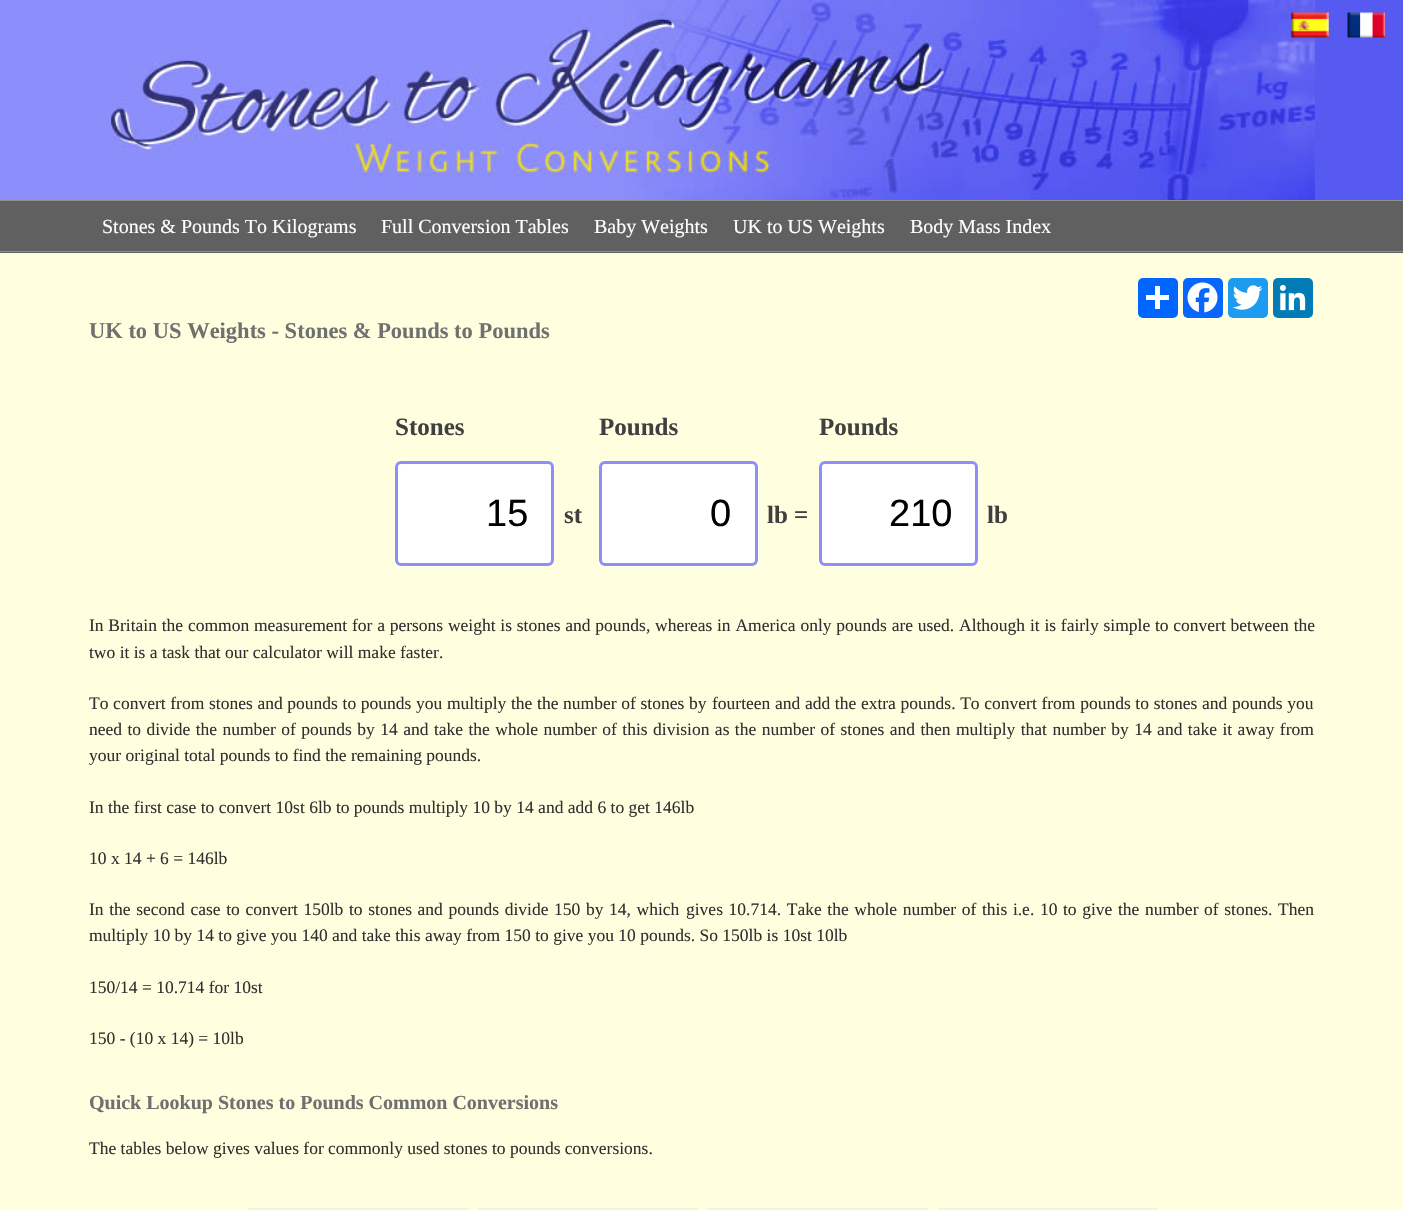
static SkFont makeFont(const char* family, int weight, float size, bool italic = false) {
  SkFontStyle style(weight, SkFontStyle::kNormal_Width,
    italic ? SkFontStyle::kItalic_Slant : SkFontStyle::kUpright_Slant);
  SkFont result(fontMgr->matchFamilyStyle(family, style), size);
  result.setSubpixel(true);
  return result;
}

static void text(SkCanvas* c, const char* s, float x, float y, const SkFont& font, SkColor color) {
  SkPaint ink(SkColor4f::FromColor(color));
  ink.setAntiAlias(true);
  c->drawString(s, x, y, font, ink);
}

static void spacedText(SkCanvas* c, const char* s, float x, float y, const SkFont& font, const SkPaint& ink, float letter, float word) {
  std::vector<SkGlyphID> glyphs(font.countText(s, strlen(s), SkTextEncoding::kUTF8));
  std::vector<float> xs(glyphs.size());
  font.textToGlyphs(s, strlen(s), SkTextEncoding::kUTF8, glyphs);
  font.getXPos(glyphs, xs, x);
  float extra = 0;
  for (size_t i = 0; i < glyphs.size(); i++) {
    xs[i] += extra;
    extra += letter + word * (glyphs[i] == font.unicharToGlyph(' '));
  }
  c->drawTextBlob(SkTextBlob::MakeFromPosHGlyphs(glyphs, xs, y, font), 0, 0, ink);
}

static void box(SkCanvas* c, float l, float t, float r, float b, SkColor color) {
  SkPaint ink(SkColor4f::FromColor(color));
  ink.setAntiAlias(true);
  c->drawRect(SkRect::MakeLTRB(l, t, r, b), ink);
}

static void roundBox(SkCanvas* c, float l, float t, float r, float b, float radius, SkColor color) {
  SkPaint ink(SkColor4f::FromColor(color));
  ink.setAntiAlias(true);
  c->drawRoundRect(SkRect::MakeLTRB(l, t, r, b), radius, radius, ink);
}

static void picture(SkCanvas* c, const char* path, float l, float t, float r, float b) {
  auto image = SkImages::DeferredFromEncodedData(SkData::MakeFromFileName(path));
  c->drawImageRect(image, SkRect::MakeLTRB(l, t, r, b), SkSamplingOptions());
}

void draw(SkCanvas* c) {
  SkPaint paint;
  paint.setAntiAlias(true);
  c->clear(0xffffffe0);
  box(c, 0, 0, 110, 200, 0xff8c8efb);
  box(c, 1315, 0, 1403, 200, 0xff565af1);
  picture(c, "img_01.png", 110, 0, 1315, 200);
  picture(c, "img_02.png", 1291, 12, 1329, 38);
  picture(c, "img_03.png", 1347, 12, 1385, 38);
  box(c, 0, 201, 1403, 253, 0xff606060);
  box(c, 0, 200, 1403, 201, 0xff909090);
  box(c, 0, 251, 1403, 252, 0xff909090);
  SkFont face1 = makeFont("Liberation Serif", 400, 20);
  text(c, "Stones & Pounds To Kilograms", 102, 233, face1, 0xffffffff);
  text(c, "Full Conversion Tables", 381, 233, face1, 0xffffffff);
  text(c, "Baby Weights", 594, 233, face1, 0xffffffff);
  text(c, "UK to US Weights", 733, 233, face1, 0xffffffff);
  text(c, "Body Mass Index", 910, 233, face1, 0xffffffff);
  roundBox(c, 1138, 278, 1178, 318, 5, 0xff0166ff);
  box(c, 1155, 286, 1160, 309, 0xffffffff);
  box(c, 1146, 295, 1169, 300, 0xffffffff);
  roundBox(c, 1183, 278, 1223, 318, 5, 0xff0866ff);
  picture(c, "img_04.png", 1187, 282, 1218, 313);
  roundBox(c, 1228, 278, 1268, 318, 5, 0xff1d9bf0);
  picture(c, "img_05.png", 1232, 285, 1263, 310);
  roundBox(c, 1273, 278, 1313, 318, 5, 0xff007bb5);
  picture(c, "img_06.png", 1279, 284, 1306, 311);
  SkFont face2 = makeFont("Liberation Serif", 700, 22.5f);
  text(c, "UK to US Weights - Stones & Pounds to Pounds", 89, 338, face2, 0xff707070);
  SkFont face3 = makeFont("Liberation Serif", 700, 25);
  text(c, "Stones", 395, 435, face3, 0xff404040);
  text(c, "Pounds", 599, 435, face3, 0xff404040);
  text(c, "Pounds", 819, 435, face3, 0xff404040);
  paint.setColor(0xffffffff);
  c->drawRoundRect(SkRect::MakeLTRB(396.5f, 462.5f, 552.5f, 564.5f), 4.5f, 4.5f, paint);
  paint.setStyle(SkPaint::kStroke_Style);
  paint.setStrokeWidth(3);
  paint.setColor(0xff8c8efb);
  c->drawRoundRect(SkRect::MakeLTRB(396.5f, 462.5f, 552.5f, 564.5f), 4.5f, 4.5f, paint);
  SkFont face4 = makeFont("Liberation Sans", 400, 38);
  text(c, "15", 486, 526, face4, 0xff000000);
  text(c, "st", 564, 523, face3, 0xff404040);
  paint.setStyle(SkPaint::kFill_Style);
  paint.setColor(0xffffffff);
  c->drawRoundRect(SkRect::MakeLTRB(600.5f, 462.5f, 756.5f, 564.5f), 4.5f, 4.5f, paint);
  paint.setStyle(SkPaint::kStroke_Style);
  paint.setColor(0xff8c8efb);
  c->drawRoundRect(SkRect::MakeLTRB(600.5f, 462.5f, 756.5f, 564.5f), 4.5f, 4.5f, paint);
  text(c, "0", 710, 526, face4, 0xff000000);
  text(c, "lb =", 767, 523, face3, 0xff404040);
  paint.setStyle(SkPaint::kFill_Style);
  paint.setColor(0xffffffff);
  c->drawRoundRect(SkRect::MakeLTRB(820.5f, 462.5f, 976.5f, 564.5f), 4.5f, 4.5f, paint);
  paint.setStyle(SkPaint::kStroke_Style);
  paint.setColor(0xff8c8efb);
  c->drawRoundRect(SkRect::MakeLTRB(820.5f, 462.5f, 976.5f, 564.5f), 4.5f, 4.5f, paint);
  text(c, "210", 889, 526, face4, 0xff000000);
  text(c, "lb", 987, 523, face3, 0xff404040);
  SkFont face5 = makeFont("Liberation Serif", 400, 17.5f);
  paint.setStyle(SkPaint::kFill_Style);
  paint.setColor(0xff303030);
  spacedText(c, "In Britain the common measurement for a persons weight is stones and pounds, whereas", 89, 631, face5, paint, 0, 0.4f);
  spacedText(c, "in America only pounds are used. Although it is fairly simple to convert between the", 717, 631, face5, paint, 0, 0.4f);
  text(c, "two it is a task that our calculator will make faster.", 89, 658, face5, 0xff303030);
  spacedText(c, "To convert from stones and pounds to pounds you multiply the the number of stones by", 89, 709, face5, paint, 0, 0.3f);
  spacedText(c, "fourteen and add the extra pounds. To convert from pounds to stones and pounds you", 712, 709, face5, paint, 0, 0.3f);
  spacedText(c, "need to divide the number of pounds by 14 and take the whole number of this division as the number of stones and then multiply that number by 14 and take it away from", 89, 735, face5, paint, 0, 1.05f);
  text(c, "your original total pounds to find the remaining pounds.", 89, 761, face5, 0xff303030);
  text(c, "In the first case to convert 10st 6lb to pounds multiply 10 by 14 and add 6 to get 146lb", 89, 813, face5, 0xff303030);
  text(c, "10 x 14 + 6 = 146lb", 89, 864, face5, 0xff303030);
  spacedText(c, "In the second case to convert 150lb to stones and pounds divide 150 by 14, which", 89, 915, face5, paint, 0, 1.25f);
  spacedText(c, "gives 10.714. Take the whole number of this i.e. 10 to give the number of stones.", 686, 915, face5, paint, 0, 1.25f);
  text(c, "Then", 1278, 915, face5, 0xff303030);
  text(c, "multiply 10 by 14 to give you 140 and take this away from 150 to give you 10 pounds. So 150lb is 10st 10lb", 89, 941, face5, 0xff303030);
  text(c, "150/14 = 10.714 for 10st", 89, 993, face5, 0xff303030);
  text(c, "150 - (10 x 14) = 10lb", 89, 1044, face5, 0xff303030);
  SkFont face6 = makeFont("Liberation Serif", 700, 20);
  text(c, "Quick Lookup Stones to Pounds Common Conversions", 89, 1109, face6, 0xff707070);
  text(c, "The tables below gives values for commonly used stones to pounds conversions.", 89, 1154, face5, 0xff303030);
  box(c, 248, 1208, 468, 1210, 0xfff4f4db);
  box(c, 478, 1208, 698, 1210, 0xfff4f4db);
  box(c, 708, 1208, 928, 1210, 0xfff4f4db);
  box(c, 938, 1208, 1158, 1210, 0xfff4f4db);
}
